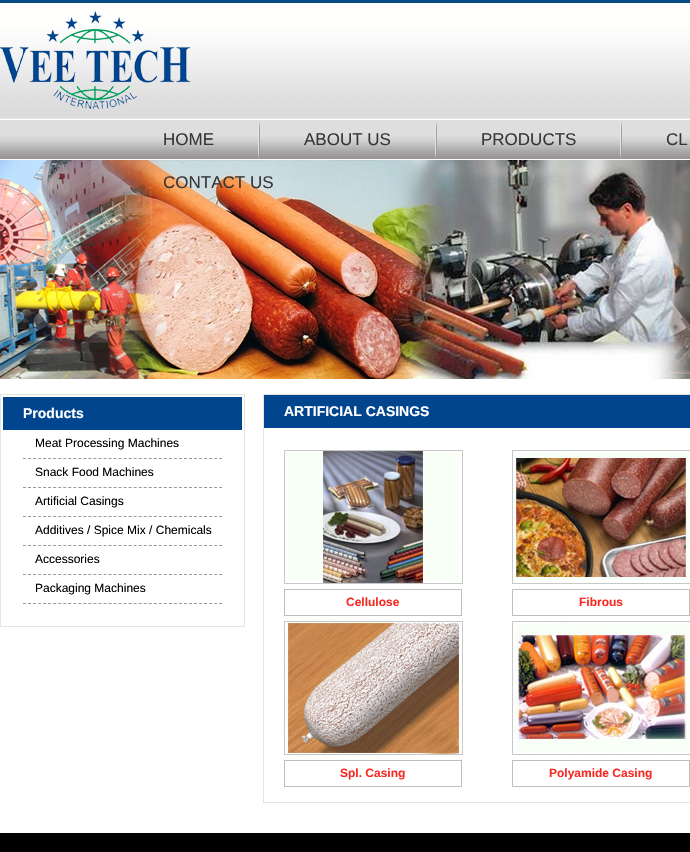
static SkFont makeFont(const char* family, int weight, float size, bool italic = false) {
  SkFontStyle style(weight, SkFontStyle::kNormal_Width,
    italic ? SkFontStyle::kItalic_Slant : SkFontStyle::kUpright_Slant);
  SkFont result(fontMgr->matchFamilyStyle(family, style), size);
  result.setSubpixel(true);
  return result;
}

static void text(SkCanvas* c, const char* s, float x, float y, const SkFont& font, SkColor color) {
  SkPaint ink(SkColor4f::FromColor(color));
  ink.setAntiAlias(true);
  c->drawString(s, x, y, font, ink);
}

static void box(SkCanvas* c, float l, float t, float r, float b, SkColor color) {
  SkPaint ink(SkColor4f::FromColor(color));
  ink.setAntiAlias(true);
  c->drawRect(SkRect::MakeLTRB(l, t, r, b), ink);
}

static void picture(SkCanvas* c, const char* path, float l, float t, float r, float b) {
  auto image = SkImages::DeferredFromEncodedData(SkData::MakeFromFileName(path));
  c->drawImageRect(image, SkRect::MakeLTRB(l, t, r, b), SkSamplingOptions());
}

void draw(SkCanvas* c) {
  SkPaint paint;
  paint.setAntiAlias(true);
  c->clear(0xffffffff);
  picture(c, "img_01.png", 0, 0, 690, 160);
  picture(c, "img_02.png", 0, 10, 190, 109);
  SkFont face1 = makeFont("Liberation Sans", 400, 17);
  text(c, "HOME", 163, 145, face1, 0xff373636);
  picture(c, "img_03.png", 258, 120, 260, 159);
  text(c, "ABOUT US", 304, 145, face1, 0xff373636);
  picture(c, "img_03.png", 435, 120, 437, 159);
  text(c, "PRODUCTS", 481, 145, face1, 0xff373636);
  picture(c, "img_03.png", 620, 120, 622, 159);
  text(c, "CL", 666, 145, face1, 0xff373636);
  picture(c, "img_04.png", 0, 160, 690, 379);
  text(c, "CONTACT US", 163, 188, face1, 0xff373636);
  paint.setStyle(SkPaint::kStroke_Style);
  paint.setStrokeWidth(1);
  paint.setColor(0xffe5e5e5);
  c->drawRect(SkRect::MakeLTRB(0.5f, 394.5f, 244.5f, 626.5f), paint);
  box(c, 3, 397, 242, 430, 0xff01458e);
  SkFont face2 = makeFont("Liberation Sans", 700, 14);
  text(c, "Products", 23, 418, face2, 0xffffffff);
  paint.setColor(0xff999999);
  paint.setPathEffect(SkDashPathEffect::Make({{3, 2.03f}}, 0));
  c->drawPath(SkPathBuilder().moveTo(23, 458.5f).lineTo(222, 458.5f).detach(), paint);
  paint.setPathEffect(nullptr);
  SkFont face3 = makeFont("Liberation Sans", 400, 12);
  text(c, "Meat Processing Machines", 35, 447, face3, 0xff000000);
  paint.setPathEffect(SkDashPathEffect::Make({{3, 2.03f}}, 0));
  c->drawPath(SkPathBuilder().moveTo(23, 487.5f).lineTo(222, 487.5f).detach(), paint);
  paint.setPathEffect(nullptr);
  text(c, "Snack Food Machines", 35, 476, face3, 0xff000000);
  paint.setPathEffect(SkDashPathEffect::Make({{3, 2.03f}}, 0));
  c->drawPath(SkPathBuilder().moveTo(23, 516.5f).lineTo(222, 516.5f).detach(), paint);
  paint.setPathEffect(nullptr);
  text(c, "Artificial Casings", 35, 505, face3, 0xff000000);
  paint.setPathEffect(SkDashPathEffect::Make({{3, 2.03f}}, 0));
  c->drawPath(SkPathBuilder().moveTo(23, 545.5f).lineTo(222, 545.5f).detach(), paint);
  paint.setPathEffect(nullptr);
  text(c, "Additives / Spice Mix / Chemicals", 35, 534, face3, 0xff000000);
  paint.setPathEffect(SkDashPathEffect::Make({{3, 2.03f}}, 0));
  c->drawPath(SkPathBuilder().moveTo(23, 574.5f).lineTo(222, 574.5f).detach(), paint);
  paint.setPathEffect(nullptr);
  text(c, "Accessories", 35, 563, face3, 0xff000000);
  paint.setPathEffect(SkDashPathEffect::Make({{3, 2.03f}}, 0));
  c->drawPath(SkPathBuilder().moveTo(23, 603.5f).lineTo(222, 603.5f).detach(), paint);
  paint.setPathEffect(nullptr);
  text(c, "Packaging Machines", 35, 592, face3, 0xff000000);
  paint.setColor(0xffe5e5e5);
  c->drawRect(SkRect::MakeLTRB(263.5f, 394.5f, 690.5f, 802.5f), paint);
  box(c, 264, 395, 690, 428, 0xff01458e);
  text(c, "ARTIFICIAL CASINGS", 284, 416, face2, 0xffffffff);
  paint.setColor(0xffc8c8c8);
  c->drawRect(SkRect::MakeLTRB(284.5f, 450.5f, 462.5f, 583.5f), paint);
  picture(c, "img_05.png", 286, 451, 461, 583);
  paint.setColor(0xffbfbfbf);
  c->drawRect(SkRect::MakeLTRB(284.5f, 589.5f, 461.5f, 615.5f), paint);
  SkFont face4 = makeFont("Liberation Sans", 700, 12);
  text(c, "Cellulose", 346, 606, face4, 0xfff72921);
  paint.setColor(0xffc8c8c8);
  c->drawRect(SkRect::MakeLTRB(512.5f, 450.5f, 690.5f, 583.5f), paint);
  picture(c, "img_06.png", 513, 451, 689, 583);
  paint.setColor(0xffbfbfbf);
  c->drawRect(SkRect::MakeLTRB(512.5f, 589.5f, 689.5f, 615.5f), paint);
  text(c, "Fibrous", 579, 606, face4, 0xfff72921);
  paint.setColor(0xffc8c8c8);
  c->drawRect(SkRect::MakeLTRB(284.5f, 621.5f, 462.5f, 754.5f), paint);
  picture(c, "img_07.png", 285, 622, 461, 754);
  paint.setColor(0xffbfbfbf);
  c->drawRect(SkRect::MakeLTRB(284.5f, 760.5f, 461.5f, 786.5f), paint);
  text(c, "Spl. Casing", 340, 777, face4, 0xfff72921);
  paint.setColor(0xffc8c8c8);
  c->drawRect(SkRect::MakeLTRB(512.5f, 621.5f, 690.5f, 754.5f), paint);
  picture(c, "img_08.png", 513, 622, 689, 754);
  paint.setColor(0xffbfbfbf);
  c->drawRect(SkRect::MakeLTRB(512.5f, 760.5f, 689.5f, 786.5f), paint);
  text(c, "Polyamide Casing", 549, 777, face4, 0xfff72921);
  box(c, 0, 833, 690, 852, 0xff000000);
}
